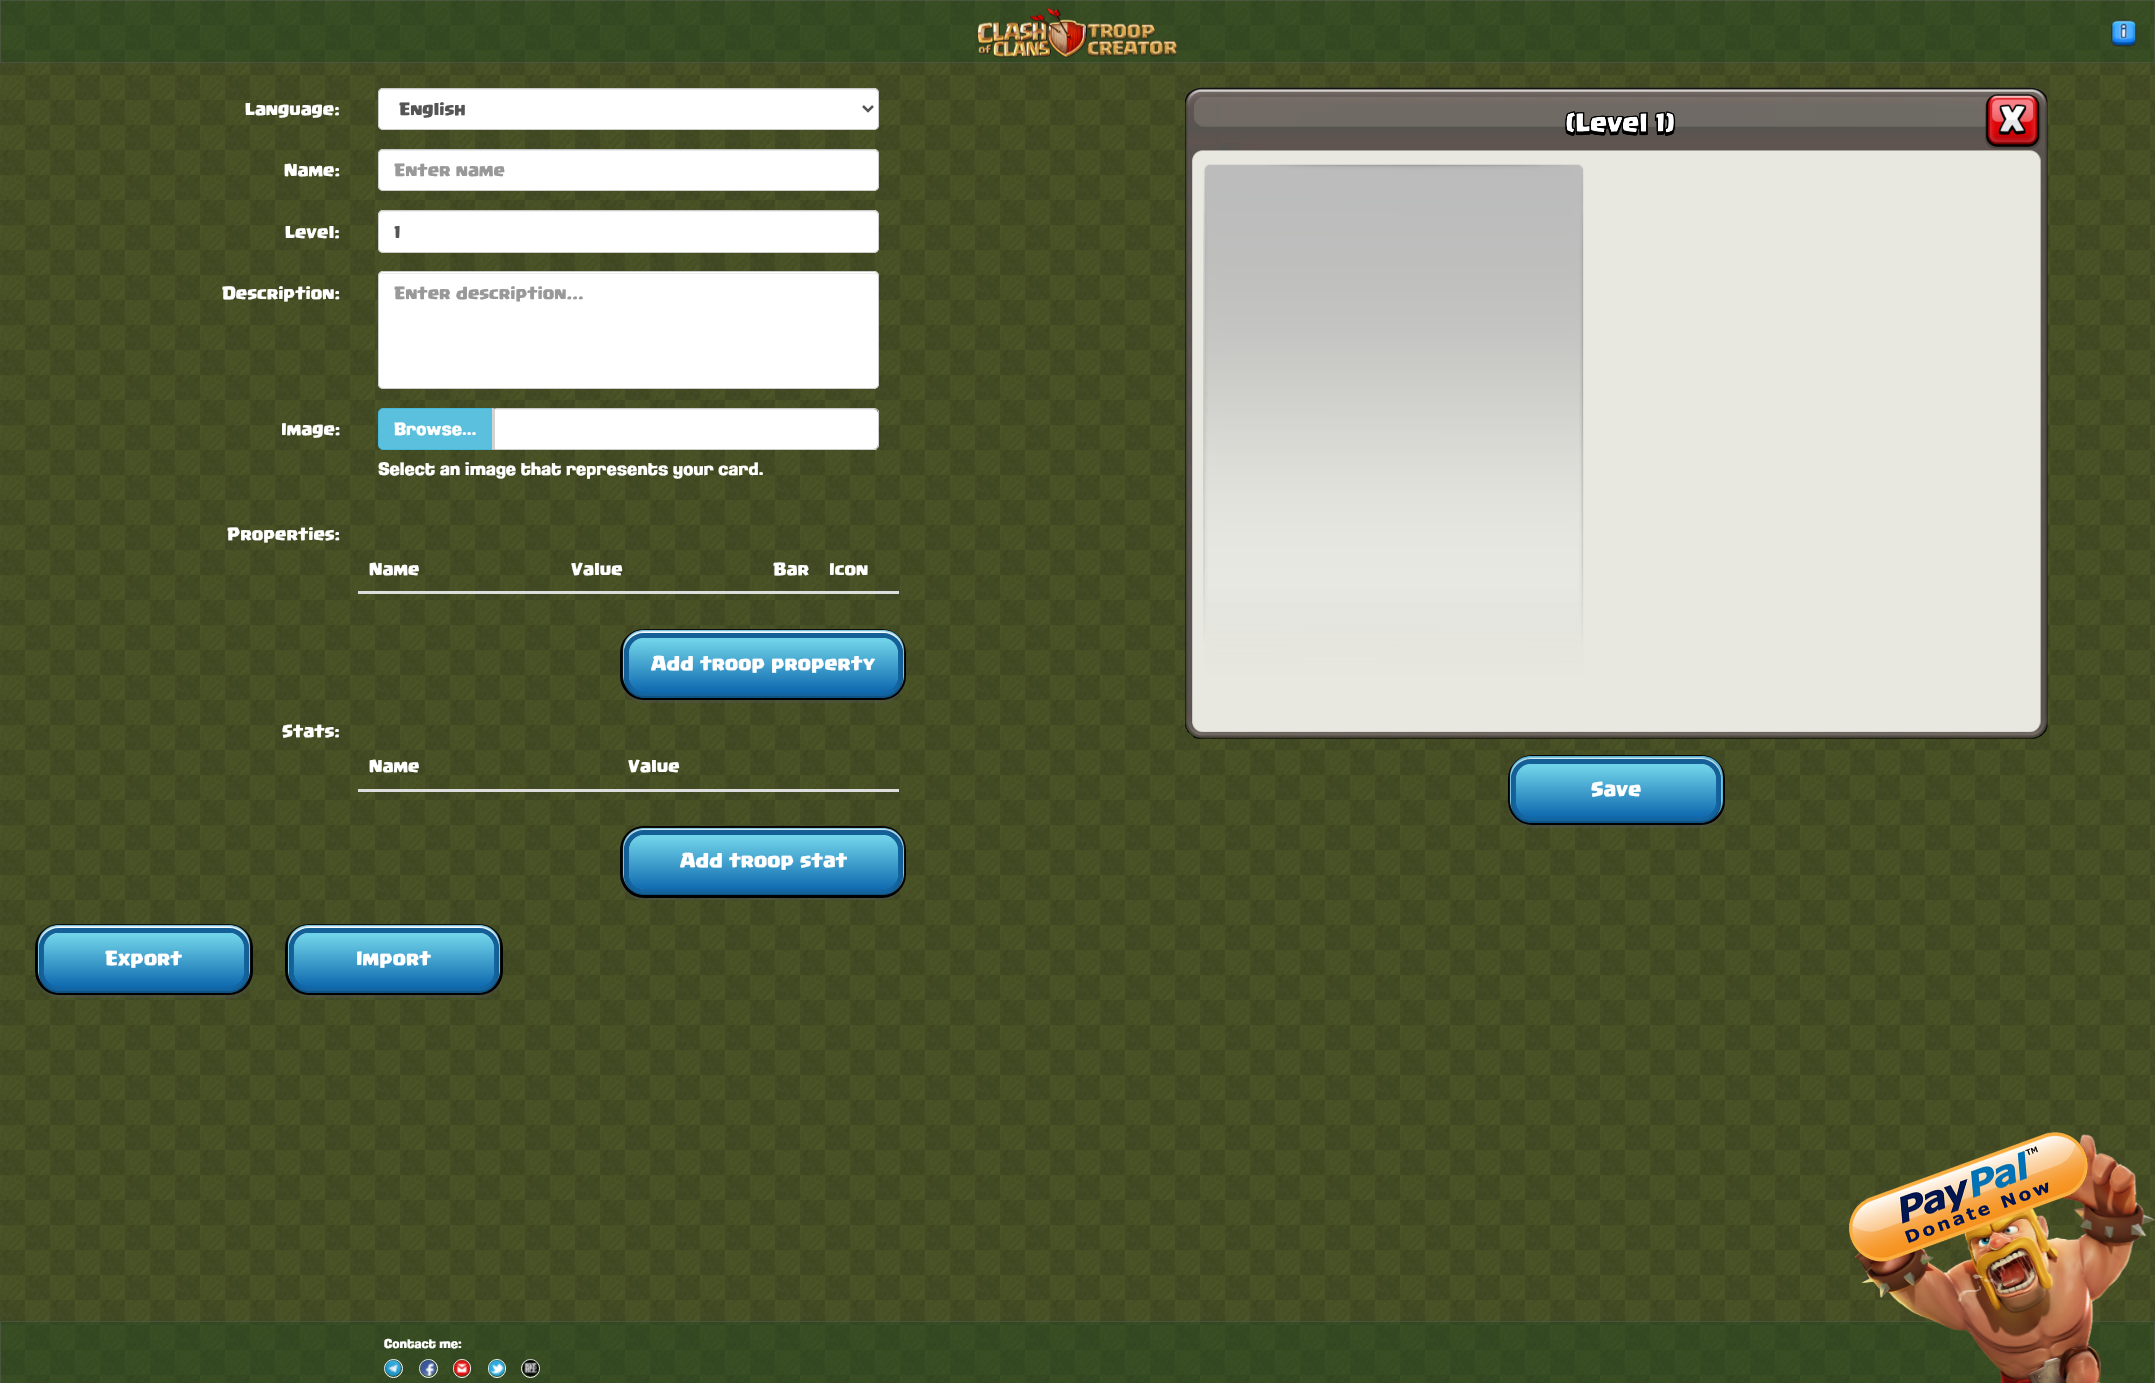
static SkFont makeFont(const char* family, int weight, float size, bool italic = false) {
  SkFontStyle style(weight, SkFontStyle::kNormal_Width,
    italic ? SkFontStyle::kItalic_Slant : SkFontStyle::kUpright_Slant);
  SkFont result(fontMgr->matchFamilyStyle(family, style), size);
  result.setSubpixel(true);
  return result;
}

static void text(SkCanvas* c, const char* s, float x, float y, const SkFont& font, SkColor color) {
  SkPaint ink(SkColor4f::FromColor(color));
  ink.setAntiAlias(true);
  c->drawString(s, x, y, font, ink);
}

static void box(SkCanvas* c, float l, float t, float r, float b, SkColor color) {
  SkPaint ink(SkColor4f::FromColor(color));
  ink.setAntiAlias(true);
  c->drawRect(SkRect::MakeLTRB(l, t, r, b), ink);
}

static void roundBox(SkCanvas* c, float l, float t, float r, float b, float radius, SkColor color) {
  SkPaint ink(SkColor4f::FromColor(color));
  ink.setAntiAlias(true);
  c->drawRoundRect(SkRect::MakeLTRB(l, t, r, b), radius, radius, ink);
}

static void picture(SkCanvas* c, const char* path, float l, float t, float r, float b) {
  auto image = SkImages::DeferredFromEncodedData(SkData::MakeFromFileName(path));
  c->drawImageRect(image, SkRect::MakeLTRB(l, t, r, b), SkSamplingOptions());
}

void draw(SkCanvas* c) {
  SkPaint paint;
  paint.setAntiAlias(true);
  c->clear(0xffffffff);
  picture(c, "img_01.png", 0, 0, 2155, 1383);
  box(c, 0, 0, 2155, 63, 0x661e461e);
  paint.setStyle(SkPaint::kStroke_Style);
  paint.setStrokeWidth(1);
  paint.setColor(0x66646464);
  c->drawRect(SkRect::MakeLTRB(0.5f, 0.5f, 2154.5f, 62.5f), paint);
  picture(c, "img_02.png", 977, 7, 1177, 58);
  picture(c, "img_03.png", 2111, 19, 2137, 47);
  SkFont face1 = makeFont("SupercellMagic", 800, 17.5f);
  text(c, "Language:", 245, 115, face1, 0xffffffff);
  roundBox(c, 378, 88, 879, 130, 5, 0xffffffff);
  paint.setStyle(SkPaint::kFill_Style);
  paint.setColor(0xffececec);
  c->drawPath(SkPathBuilder().moveTo(382, 90).lineTo(874, 90).cubicTo(876, 90, 878, 92, 878, 94).cubicTo(878, 91, 877, 89, 874, 89).lineTo(383, 89).cubicTo(380, 89, 379, 91, 379, 94).cubicTo(379, 92, 380, 90, 382, 90).close().detach(), paint);
  paint.setStyle(SkPaint::kStroke_Style);
  paint.setColor(0xffcccccc);
  c->drawRoundRect(SkRect::MakeLTRB(378.5f, 88.5f, 878.5f, 129.5f), 4.5f, 4.5f, paint);
  paint.setStrokeWidth(2.5f);
  paint.setColor(0xff555555);
  c->drawPath(SkPathBuilder().moveTo(863, 106).lineTo(868, 111).lineTo(873, 106).detach(), paint);
  text(c, "English", 399, 115, face1, 0xff555555);
  text(c, "Name:", 284, 176, face1, 0xffffffff);
  roundBox(c, 378, 149, 879, 191, 5, 0xffffffff);
  paint.setStyle(SkPaint::kFill_Style);
  paint.setColor(0xffececec);
  c->drawPath(SkPathBuilder().moveTo(382, 151).lineTo(874, 151).cubicTo(876, 151, 878, 153, 878, 155).cubicTo(878, 152, 877, 150, 874, 150).lineTo(383, 150).cubicTo(380, 150, 379, 152, 379, 155).cubicTo(379, 153, 380, 151, 382, 151).close().detach(), paint);
  paint.setStyle(SkPaint::kStroke_Style);
  paint.setStrokeWidth(1);
  paint.setColor(0xffcccccc);
  c->drawRoundRect(SkRect::MakeLTRB(378.5f, 149.5f, 878.5f, 190.5f), 4.5f, 4.5f, paint);
  text(c, "Enter name", 394, 176, face1, 0xff999999);
  text(c, "Level:", 285, 238, face1, 0xffffffff);
  roundBox(c, 378, 210, 879, 253, 5, 0xffffffff);
  paint.setStyle(SkPaint::kFill_Style);
  paint.setColor(0xffececec);
  c->drawPath(SkPathBuilder().moveTo(382, 212).lineTo(874, 212).cubicTo(876, 212, 878, 214, 878, 216).cubicTo(878, 213, 877, 211, 874, 211).lineTo(383, 211).cubicTo(380, 211, 379, 213, 379, 216).cubicTo(379, 214, 380, 212, 382, 212).close().detach(), paint);
  paint.setStyle(SkPaint::kStroke_Style);
  paint.setColor(0xffcccccc);
  c->drawRoundRect(SkRect::MakeLTRB(378.5f, 210.5f, 878.5f, 252.5f), 4.5f, 4.5f, paint);
  text(c, "1", 394, 238, face1, 0xff555555);
  text(c, "Description:", 222, 299, face1, 0xffffffff);
  roundBox(c, 378, 271, 879, 389, 5, 0xffffffff);
  paint.setStyle(SkPaint::kFill_Style);
  paint.setColor(0xffececec);
  c->drawPath(SkPathBuilder().moveTo(382, 274).lineTo(874, 274).cubicTo(876, 274, 878, 275, 878, 278).cubicTo(878, 275, 877, 273, 874, 273).lineTo(383, 273).cubicTo(380, 273, 379, 275, 379, 278).cubicTo(379, 275, 380, 274, 382, 274).close().detach(), paint);
  paint.setStyle(SkPaint::kStroke_Style);
  paint.setColor(0xffcccccc);
  c->drawRoundRect(SkRect::MakeLTRB(378.5f, 271.5f, 878.5f, 388.5f), 4.5f, 4.5f, paint);
  text(c, "Enter description...", 394, 299, face1, 0xff999999);
  text(c, "Image:", 281, 435, face1, 0xffffffff);
  paint.setStyle(SkPaint::kFill_Style);
  paint.setColor(0xff5bc0de);
  c->drawPath(SkPathBuilder().moveTo(383, 408.5f).lineTo(493.5f, 408.5f).lineTo(493.5f, 449.5f).lineTo(383, 449.5f).cubicTo(380.5f, 449.5f, 378.5f, 447.5f, 378.5f, 445).lineTo(378.5f, 413).cubicTo(378.5f, 410.5f, 380.5f, 408.5f, 383, 408.5f).close().detach(), paint);
  paint.setStyle(SkPaint::kStroke_Style);
  paint.setColor(0xff46b8da);
  c->drawPath(SkPathBuilder().moveTo(383, 408.5f).lineTo(493.5f, 408.5f).lineTo(493.5f, 449.5f).lineTo(383, 449.5f).cubicTo(380.5f, 449.5f, 378.5f, 447.5f, 378.5f, 445).lineTo(378.5f, 413).cubicTo(378.5f, 410.5f, 380.5f, 408.5f, 383, 408.5f).close().detach(), paint);
  SkFont face2 = makeFont("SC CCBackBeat", 700, 17.5f);
  text(c, "Browse…", 394, 435, face2, 0xffffffff);
  paint.setStyle(SkPaint::kFill_Style);
  paint.setColor(0xffffffff);
  c->drawPath(SkPathBuilder().moveTo(495, 409).lineTo(874, 409).cubicTo(876, 409, 878, 411, 878, 413).lineTo(878, 445).cubicTo(878, 447, 876, 449, 874, 449).lineTo(495, 449).close().detach(), paint);
  paint.setColor(0x12000000);
  c->drawPath(SkPathBuilder().moveTo(495, 410).lineTo(874, 410).cubicTo(876, 410, 878, 412, 878, 414).cubicTo(878, 411, 877, 409, 874, 409).lineTo(495, 409).close().detach(), paint);
  paint.setColor(0xffcccccc);
  c->drawPath(SkPathBuilder().moveTo(877, 409).cubicTo(876, 408, 875, 408, 874, 408).lineTo(494, 408).lineTo(496, 409).lineTo(874, 409).lineTo(877, 410).close().detach(), paint);
  c->drawPath(SkPathBuilder().moveTo(877.5f, 409).lineTo(879, 411).lineTo(879, 446.5f).lineTo(877.5f, 448.5f).lineTo(876.5f, 448).cubicTo(877.5f, 447, 878, 446, 878, 445).lineTo(878, 412).cubicTo(878, 411, 877.5f, 410, 876.5f, 409.5f).close().detach(), paint);
  c->drawPath(SkPathBuilder().moveTo(492, 450).lineTo(874, 450).cubicTo(875, 450, 877, 450, 877, 449).lineTo(877, 448).lineTo(874, 449).lineTo(495, 449).close().detach(), paint);
  paint.setColor(0xffd3d3d3);
  c->drawPath(SkPathBuilder().moveTo(495, 409).lineTo(496, 409).lineTo(492, 408).lineTo(492, 450).lineTo(495, 449).close().detach(), paint);
  text(c, "Select an image that represents your card.", 378, 475, face2, 0xffffffff);
  text(c, "Properties:", 227, 540, face1, 0xffffffff);
  text(c, "Name", 369, 575, face1, 0xffffffff);
  text(c, "Value", 571, 575, face1, 0xffffffff);
  text(c, "Bar", 773, 575, face1, 0xffffffff);
  text(c, "Icon", 829, 575, face1, 0xffffffff);
  box(c, 358, 591, 899, 594, 0xffdddddd);
  paint.setColor(0x66505050);
  c->drawPath(SkPathBuilder(SkPathFillType::kEvenOdd).moveTo(644, 631).cubicTo(631, 631, 620, 642, 620, 655).lineTo(620, 679).cubicTo(620, 692, 631, 703, 644, 703).lineTo(882, 703).cubicTo(895, 703, 906, 692, 906, 679).lineTo(906, 655).cubicTo(906, 642, 895, 631, 882, 631).close().moveTo(644, 638).cubicTo(635, 638, 629, 644, 629, 652).lineTo(629, 676).cubicTo(629, 685, 635, 691, 644, 691).lineTo(882, 691).cubicTo(891, 691, 898, 685, 898, 676).lineTo(898, 652).cubicTo(898, 644, 891, 638, 882, 638).close().detach(), paint);
  paint.setStyle(SkPaint::kStroke_Style);
  paint.setStrokeWidth(9);
  paint.setColor(0xff000000);
  c->drawRoundRect(SkRect::MakeLTRB(624.5f, 633.5f, 901.5f, 695.5f), 19.5f, 19.5f, paint);
  paint.setStyle(SkPaint::kFill_Style);
  paint.setColor(0xff51aed0);
  c->drawPath(SkPathBuilder(SkPathFillType::kEvenOdd).moveTo(644, 630).cubicTo(632, 630, 623, 639, 623, 651).lineTo(623, 675).cubicTo(623, 687, 632, 696, 644, 696).lineTo(883, 696).cubicTo(895, 696, 904, 687, 904, 675).lineTo(904, 651).cubicTo(904, 639, 895, 630, 883, 630).close().moveTo(644, 638).cubicTo(635, 638, 629, 644, 629, 652).lineTo(629, 676).cubicTo(629, 685, 635, 691, 644, 691).lineTo(882, 691).cubicTo(891, 691, 898, 685, 898, 676).lineTo(898, 652).cubicTo(898, 644, 891, 638, 882, 638).close().detach(), paint);
  paint.setColor(0xffffffff);
  paint.setMaskFilter(SkMaskFilter::MakeBlur(kNormal_SkBlurStyle, 1));
  c->drawRoundRect(SkRect::MakeLTRB(624, 631, 903, 695), 20, 20, paint);
  paint.setMaskFilter(nullptr);
  paint.setColor(0xff0c5080);
  c->drawPath(SkPathBuilder(SkPathFillType::kEvenOdd).moveTo(644, 634).cubicTo(633, 634, 624, 643, 624, 654).lineTo(624, 678).cubicTo(624, 689, 633, 698, 644, 698).lineTo(883, 698).cubicTo(894, 698, 903, 689, 903, 678).lineTo(903, 654).cubicTo(903, 643, 894, 634, 883, 634).close().moveTo(644, 638).cubicTo(635, 638, 629, 644, 629, 652).lineTo(629, 676).cubicTo(629, 685, 635, 691, 644, 691).lineTo(882, 691).cubicTo(891, 691, 898, 685, 898, 676).lineTo(898, 652).cubicTo(898, 644, 891, 638, 882, 638).close().detach(), paint);
  paint.setStyle(SkPaint::kStroke_Style);
  paint.setStrokeWidth(5);
  paint.setColor(0xff145f95);
  c->drawRoundRect(SkRect::MakeLTRB(626.5f, 635.5f, 900.5f, 693.5f), 17.5f, 17.5f, paint);
  paint.setStyle(SkPaint::kFill_Style);
  paint.setColor(0xff106bb0);
  paint.setMaskFilter(SkMaskFilter::MakeBlur(kNormal_SkBlurStyle, 2));
  c->drawRoundRect(SkRect::MakeLTRB(629, 640, 898, 694), 15, 15, paint);
  paint.setMaskFilter(nullptr);
  {
    const SkColor colors[] = {0xff70d2e8, 0xff106bb0};
    const float stops[] = {0.05f, 1};
    const SkPoint ends[] = {{763, 638}, {763, 691}};
    paint.setShader(SkGradientShader::MakeLinear(ends, colors, stops, 2, SkTileMode::kClamp));
    paint.setAlpha(255);
  }
  c->drawRoundRect(SkRect::MakeLTRB(629, 638, 898, 691), 15, 15, paint);
  SkFont face3 = makeFont("SupercellMagic", 800, 20);
  text(c, "Add troop property", 651, 670, face3, 0xffffffff);
  text(c, "Stats:", 282, 737, face1, 0xffffffff);
  text(c, "Name", 369, 772, face1, 0xffffffff);
  text(c, "Value", 628, 772, face1, 0xffffffff);
  box(c, 358, 789, 899, 792, 0xffdddddd);
  paint.setShader(nullptr);
  paint.setColor(0x66505050);
  c->drawPath(SkPathBuilder(SkPathFillType::kEvenOdd).moveTo(644, 829).cubicTo(631, 829, 620, 840, 620, 853).lineTo(620, 876).cubicTo(620, 889, 631, 900, 644, 900).lineTo(882, 900).cubicTo(895, 900, 906, 889, 906, 876).lineTo(906, 853).cubicTo(906, 840, 895, 829, 882, 829).close().moveTo(644, 835).cubicTo(635, 835, 629, 842, 629, 850).lineTo(629, 874).cubicTo(629, 882, 635, 889, 644, 889).lineTo(882, 889).cubicTo(891, 889, 898, 882, 898, 874).lineTo(898, 850).cubicTo(898, 842, 891, 835, 882, 835).close().detach(), paint);
  paint.setStyle(SkPaint::kStroke_Style);
  paint.setStrokeWidth(9);
  paint.setColor(0xff000000);
  c->drawRoundRect(SkRect::MakeLTRB(624.5f, 830.5f, 901.5f, 893.5f), 19.5f, 19.5f, paint);
  paint.setStyle(SkPaint::kFill_Style);
  paint.setColor(0xff51aed0);
  c->drawPath(SkPathBuilder(SkPathFillType::kEvenOdd).moveTo(644, 828).cubicTo(632, 828, 623, 837, 623, 849).lineTo(623, 873).cubicTo(623, 885, 632, 894, 644, 894).lineTo(883, 894).cubicTo(895, 894, 904, 885, 904, 873).lineTo(904, 849).cubicTo(904, 837, 895, 828, 883, 828).close().moveTo(644, 835).cubicTo(635, 835, 629, 842, 629, 850).lineTo(629, 874).cubicTo(629, 882, 635, 889, 644, 889).lineTo(882, 889).cubicTo(891, 889, 898, 882, 898, 874).lineTo(898, 850).cubicTo(898, 842, 891, 835, 882, 835).close().detach(), paint);
  paint.setColor(0xffffffff);
  paint.setMaskFilter(SkMaskFilter::MakeBlur(kNormal_SkBlurStyle, 1));
  c->drawRoundRect(SkRect::MakeLTRB(624, 829, 903, 893), 20, 20, paint);
  paint.setMaskFilter(nullptr);
  paint.setColor(0xff0c5080);
  c->drawPath(SkPathBuilder(SkPathFillType::kEvenOdd).moveTo(644, 831).cubicTo(633, 831, 624, 840, 624, 851).lineTo(624, 875).cubicTo(624, 886, 633, 895, 644, 895).lineTo(883, 895).cubicTo(894, 895, 903, 886, 903, 875).lineTo(903, 851).cubicTo(903, 840, 894, 831, 883, 831).close().moveTo(644, 835).cubicTo(635, 835, 629, 842, 629, 850).lineTo(629, 874).cubicTo(629, 882, 635, 889, 644, 889).lineTo(882, 889).cubicTo(891, 889, 898, 882, 898, 874).lineTo(898, 850).cubicTo(898, 842, 891, 835, 882, 835).close().detach(), paint);
  paint.setStyle(SkPaint::kStroke_Style);
  paint.setStrokeWidth(5);
  paint.setColor(0xff145f95);
  c->drawRoundRect(SkRect::MakeLTRB(626.5f, 832.5f, 900.5f, 891.5f), 17.5f, 17.5f, paint);
  paint.setStyle(SkPaint::kFill_Style);
  paint.setColor(0xff106bb0);
  paint.setMaskFilter(SkMaskFilter::MakeBlur(kNormal_SkBlurStyle, 2));
  c->drawRoundRect(SkRect::MakeLTRB(629, 838, 898, 891), 15, 15, paint);
  paint.setMaskFilter(nullptr);
  {
    const SkColor colors[] = {0xff70d2e8, 0xff106bb0};
    const float stops[] = {0.05f, 1};
    const SkPoint ends[] = {{763, 835}, {763, 889}};
    paint.setShader(SkGradientShader::MakeLinear(ends, colors, stops, 2, SkTileMode::kClamp));
    paint.setAlpha(255);
  }
  c->drawRoundRect(SkRect::MakeLTRB(629, 835, 898, 889), 15, 15, paint);
  text(c, "Add troop stat", 680, 867, face3, 0xffffffff);
  paint.setShader(nullptr);
  paint.setColor(0x66505050);
  c->drawPath(SkPathBuilder(SkPathFillType::kEvenOdd).moveTo(59, 926).cubicTo(46, 926, 35, 937, 35, 950).lineTo(35, 974).cubicTo(35, 987, 46, 998, 59, 998).lineTo(229, 998).cubicTo(242, 998, 253, 987, 253, 974).lineTo(253, 950).cubicTo(253, 937, 242, 926, 229, 926).close().moveTo(59, 932).cubicTo(50, 932, 44, 939, 44, 948).lineTo(44, 971).cubicTo(44, 980, 50, 986, 59, 986).lineTo(229, 986).cubicTo(237, 986, 244, 980, 244, 971).lineTo(244, 948).cubicTo(244, 939, 237, 932, 229, 932).close().detach(), paint);
  paint.setStyle(SkPaint::kStroke_Style);
  paint.setStrokeWidth(9);
  paint.setColor(0xff000000);
  c->drawRoundRect(SkRect::MakeLTRB(39.5f, 928.5f, 248.5f, 990.5f), 19.5f, 19.5f, paint);
  paint.setStyle(SkPaint::kFill_Style);
  paint.setColor(0xff51aed0);
  c->drawPath(SkPathBuilder(SkPathFillType::kEvenOdd).moveTo(59, 925).cubicTo(47, 925, 38, 934, 38, 946).lineTo(38, 970).cubicTo(38, 982, 47, 991, 59, 991).lineTo(229, 991).cubicTo(241, 991, 250, 982, 250, 970).lineTo(250, 946).cubicTo(250, 934, 241, 925, 229, 925).close().moveTo(59, 932).cubicTo(50, 932, 44, 939, 44, 948).lineTo(44, 971).cubicTo(44, 980, 50, 986, 59, 986).lineTo(229, 986).cubicTo(237, 986, 244, 980, 244, 971).lineTo(244, 948).cubicTo(244, 939, 237, 932, 229, 932).close().detach(), paint);
  paint.setColor(0xffffffff);
  paint.setMaskFilter(SkMaskFilter::MakeBlur(kNormal_SkBlurStyle, 1));
  c->drawRoundRect(SkRect::MakeLTRB(39, 926, 249, 990), 20, 20, paint);
  paint.setMaskFilter(nullptr);
  paint.setColor(0xff0c5080);
  c->drawPath(SkPathBuilder(SkPathFillType::kEvenOdd).moveTo(59, 929).cubicTo(48, 929, 39, 938, 39, 949).lineTo(39, 973).cubicTo(39, 984, 48, 993, 59, 993).lineTo(229, 993).cubicTo(240, 993, 249, 984, 249, 973).lineTo(249, 949).cubicTo(249, 938, 240, 929, 229, 929).close().moveTo(59, 932).cubicTo(50, 932, 44, 939, 44, 948).lineTo(44, 971).cubicTo(44, 980, 50, 986, 59, 986).lineTo(229, 986).cubicTo(237, 986, 244, 980, 244, 971).lineTo(244, 948).cubicTo(244, 939, 237, 932, 229, 932).close().detach(), paint);
  paint.setStyle(SkPaint::kStroke_Style);
  paint.setStrokeWidth(5);
  paint.setColor(0xff145f95);
  c->drawRoundRect(SkRect::MakeLTRB(41.5f, 930.5f, 246.5f, 988.5f), 17.5f, 17.5f, paint);
  paint.setStyle(SkPaint::kFill_Style);
  paint.setColor(0xff106bb0);
  paint.setMaskFilter(SkMaskFilter::MakeBlur(kNormal_SkBlurStyle, 2));
  c->drawRoundRect(SkRect::MakeLTRB(44, 935, 244, 989), 15, 15, paint);
  paint.setMaskFilter(nullptr);
  {
    const SkColor colors[] = {0xff70d2e8, 0xff106bb0};
    const float stops[] = {0.05f, 1};
    const SkPoint ends[] = {{144, 933}, {144, 986}};
    paint.setShader(SkGradientShader::MakeLinear(ends, colors, stops, 2, SkTileMode::kClamp));
    paint.setAlpha(255);
  }
  c->drawRoundRect(SkRect::MakeLTRB(44, 933, 244, 986), 15, 15, paint);
  text(c, "Export", 105, 965, face3, 0xffffffff);
  paint.setShader(nullptr);
  paint.setColor(0x66505050);
  c->drawPath(SkPathBuilder(SkPathFillType::kEvenOdd).moveTo(309, 926).cubicTo(296, 926, 285, 937, 285, 950).lineTo(285, 974).cubicTo(285, 987, 296, 998, 309, 998).lineTo(479, 998).cubicTo(492, 998, 503, 987, 503, 974).lineTo(503, 950).cubicTo(503, 937, 492, 926, 479, 926).close().moveTo(309, 932).cubicTo(300, 932, 294, 939, 294, 948).lineTo(294, 971).cubicTo(294, 980, 300, 986, 309, 986).lineTo(479, 986).cubicTo(487, 986, 494, 980, 494, 971).lineTo(494, 948).cubicTo(494, 939, 487, 932, 479, 932).close().detach(), paint);
  paint.setStyle(SkPaint::kStroke_Style);
  paint.setStrokeWidth(9);
  paint.setColor(0xff000000);
  c->drawRoundRect(SkRect::MakeLTRB(289.5f, 928.5f, 498.5f, 990.5f), 19.5f, 19.5f, paint);
  paint.setStyle(SkPaint::kFill_Style);
  paint.setColor(0xff51aed0);
  c->drawPath(SkPathBuilder(SkPathFillType::kEvenOdd).moveTo(309, 925).cubicTo(297, 925, 288, 934, 288, 946).lineTo(288, 970).cubicTo(288, 982, 297, 991, 309, 991).lineTo(479, 991).cubicTo(491, 991, 500, 982, 500, 970).lineTo(500, 946).cubicTo(500, 934, 491, 925, 479, 925).close().moveTo(309, 932).cubicTo(300, 932, 294, 939, 294, 948).lineTo(294, 971).cubicTo(294, 980, 300, 986, 309, 986).lineTo(479, 986).cubicTo(487, 986, 494, 980, 494, 971).lineTo(494, 948).cubicTo(494, 939, 487, 932, 479, 932).close().detach(), paint);
  paint.setColor(0xffffffff);
  paint.setMaskFilter(SkMaskFilter::MakeBlur(kNormal_SkBlurStyle, 1));
  c->drawRoundRect(SkRect::MakeLTRB(289, 926, 499, 990), 20, 20, paint);
  paint.setMaskFilter(nullptr);
  paint.setColor(0xff0c5080);
  c->drawPath(SkPathBuilder(SkPathFillType::kEvenOdd).moveTo(309, 929).cubicTo(298, 929, 289, 938, 289, 949).lineTo(289, 973).cubicTo(289, 984, 298, 993, 309, 993).lineTo(479, 993).cubicTo(490, 993, 499, 984, 499, 973).lineTo(499, 949).cubicTo(499, 938, 490, 929, 479, 929).close().moveTo(309, 932).cubicTo(300, 932, 294, 939, 294, 948).lineTo(294, 971).cubicTo(294, 980, 300, 986, 309, 986).lineTo(479, 986).cubicTo(487, 986, 494, 980, 494, 971).lineTo(494, 948).cubicTo(494, 939, 487, 932, 479, 932).close().detach(), paint);
  paint.setStyle(SkPaint::kStroke_Style);
  paint.setStrokeWidth(5);
  paint.setColor(0xff145f95);
  c->drawRoundRect(SkRect::MakeLTRB(291.5f, 930.5f, 496.5f, 988.5f), 17.5f, 17.5f, paint);
  paint.setStyle(SkPaint::kFill_Style);
  paint.setColor(0xff106bb0);
  paint.setMaskFilter(SkMaskFilter::MakeBlur(kNormal_SkBlurStyle, 2));
  c->drawRoundRect(SkRect::MakeLTRB(294, 935, 494, 989), 15, 15, paint);
  paint.setMaskFilter(nullptr);
  {
    const SkColor colors[] = {0xff70d2e8, 0xff106bb0};
    const float stops[] = {0.05f, 1};
    const SkPoint ends[] = {{394, 933}, {394, 986}};
    paint.setShader(SkGradientShader::MakeLinear(ends, colors, stops, 2, SkTileMode::kClamp));
    paint.setAlpha(255);
  }
  c->drawRoundRect(SkRect::MakeLTRB(294, 933, 494, 986), 15, 15, paint);
  text(c, "Import", 356, 965, face3, 0xffffffff);
  picture(c, "img_04.png", 1185, 87, 2048, 739);
  paint.setShader(nullptr);
  paint.setColor(0x66505050);
  c->drawPath(SkPathBuilder(SkPathFillType::kEvenOdd).moveTo(1532, 758).cubicTo(1519, 758, 1508, 769, 1508, 782).lineTo(1508, 804).cubicTo(1508, 817, 1519, 828, 1532, 828).lineTo(1701, 828).cubicTo(1714, 828, 1725, 817, 1725, 804).lineTo(1725, 782).cubicTo(1725, 769, 1714, 758, 1701, 758).close().moveTo(1531, 764).cubicTo(1523, 764, 1516, 770, 1516, 779).lineTo(1516, 801).cubicTo(1516, 810, 1523, 816, 1531, 816).lineTo(1701, 816).cubicTo(1710, 816, 1716, 810, 1716, 801).lineTo(1716, 779).cubicTo(1716, 770, 1710, 764, 1701, 764).close().detach(), paint);
  paint.setStyle(SkPaint::kStroke_Style);
  paint.setStrokeWidth(9);
  paint.setColor(0xff000000);
  c->drawRoundRect(SkRect::MakeLTRB(1512.5f, 759.5f, 1720.5f, 820.5f), 19.5f, 19.5f, paint);
  paint.setStyle(SkPaint::kFill_Style);
  paint.setColor(0xff51aed0);
  c->drawPath(SkPathBuilder(SkPathFillType::kEvenOdd).moveTo(1531, 756).cubicTo(1519, 756, 1510, 765, 1510, 777).lineTo(1510, 800).cubicTo(1510, 812, 1519, 821, 1531, 821).lineTo(1702, 821).cubicTo(1714, 821, 1723, 812, 1723, 800).lineTo(1723, 777).cubicTo(1723, 765, 1714, 756, 1702, 756).close().moveTo(1531, 764).cubicTo(1523, 764, 1516, 770, 1516, 779).lineTo(1516, 801).cubicTo(1516, 810, 1523, 816, 1531, 816).lineTo(1701, 816).cubicTo(1710, 816, 1716, 810, 1716, 801).lineTo(1716, 779).cubicTo(1716, 770, 1710, 764, 1701, 764).close().detach(), paint);
  paint.setColor(0xffffffff);
  paint.setMaskFilter(SkMaskFilter::MakeBlur(kNormal_SkBlurStyle, 1));
  c->drawRoundRect(SkRect::MakeLTRB(1511, 758, 1721, 820), 20, 20, paint);
  paint.setMaskFilter(nullptr);
  paint.setColor(0xff0c5080);
  c->drawPath(SkPathBuilder(SkPathFillType::kEvenOdd).moveTo(1531, 760).cubicTo(1520, 760, 1511, 769, 1511, 780).lineTo(1511, 803).cubicTo(1511, 814, 1520, 823, 1531, 823).lineTo(1701, 823).cubicTo(1712, 823, 1721, 814, 1721, 803).lineTo(1721, 780).cubicTo(1721, 769, 1712, 760, 1701, 760).close().moveTo(1531, 764).cubicTo(1523, 764, 1516, 770, 1516, 779).lineTo(1516, 801).cubicTo(1516, 810, 1523, 816, 1531, 816).lineTo(1701, 816).cubicTo(1710, 816, 1716, 810, 1716, 801).lineTo(1716, 779).cubicTo(1716, 770, 1710, 764, 1701, 764).close().detach(), paint);
  paint.setStyle(SkPaint::kStroke_Style);
  paint.setStrokeWidth(5);
  paint.setColor(0xff145f95);
  c->drawRoundRect(SkRect::MakeLTRB(1513.5f, 761.5f, 1718.5f, 818.5f), 17.5f, 17.5f, paint);
  paint.setStyle(SkPaint::kFill_Style);
  paint.setColor(0xff106bb0);
  paint.setMaskFilter(SkMaskFilter::MakeBlur(kNormal_SkBlurStyle, 2));
  c->drawRoundRect(SkRect::MakeLTRB(1516, 766, 1716, 819), 15, 15, paint);
  paint.setMaskFilter(nullptr);
  {
    const SkColor colors[] = {0xff70d2e8, 0xff106bb0};
    const float stops[] = {0.05f, 1};
    const SkPoint ends[] = {{1616, 764}, {1616, 816}};
    paint.setShader(SkGradientShader::MakeLinear(ends, colors, stops, 2, SkTileMode::kClamp));
    paint.setAlpha(255);
  }
  c->drawRoundRect(SkRect::MakeLTRB(1516, 764, 1716, 816), 15, 15, paint);
  text(c, "Save", 1591, 796, face3, 0xffffffff);
  box(c, 0, 1321, 2155, 1383, 0x661e461e);
  paint.setStyle(SkPaint::kStroke_Style);
  paint.setStrokeWidth(1);
  paint.setShader(nullptr);
  paint.setColor(0x66646464);
  c->drawRect(SkRect::MakeLTRB(0.5f, 1321.5f, 2154.5f, 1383.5f), paint);
  SkFont face4 = makeFont("SC CCBackBeat", 700, 12.5f);
  text(c, "Contact me:", 384, 1348, face4, 0xffffffff);
  paint.setColor(0xffffffff);
  c->drawCircle(393.5f, 1368.5f, 9, paint);
  picture(c, "img_05.png", 384, 1359, 402, 1377);
  c->drawCircle(428.5f, 1368.5f, 9, paint);
  picture(c, "img_06.png", 419, 1359, 437, 1377);
  c->drawRoundRect(SkRect::MakeLTRB(453.5f, 1359.5f, 470.5f, 1377.5f), 8.5f, 8.5f, paint);
  picture(c, "img_07.png", 453, 1359, 471, 1377);
  c->drawRoundRect(SkRect::MakeLTRB(488.5f, 1359.5f, 505.5f, 1377.5f), 8.5f, 8.5f, paint);
  picture(c, "img_08.png", 488, 1359, 506, 1377);
  c->drawCircle(530.5f, 1368.5f, 9, paint);
  picture(c, "img_09.png", 522, 1359, 539, 1377);
  picture(c, "img_11.png", 1855, 1134, 2155, 1383);
  picture(c, "img_10.png", 1848, 1132, 2088, 1262);
}
